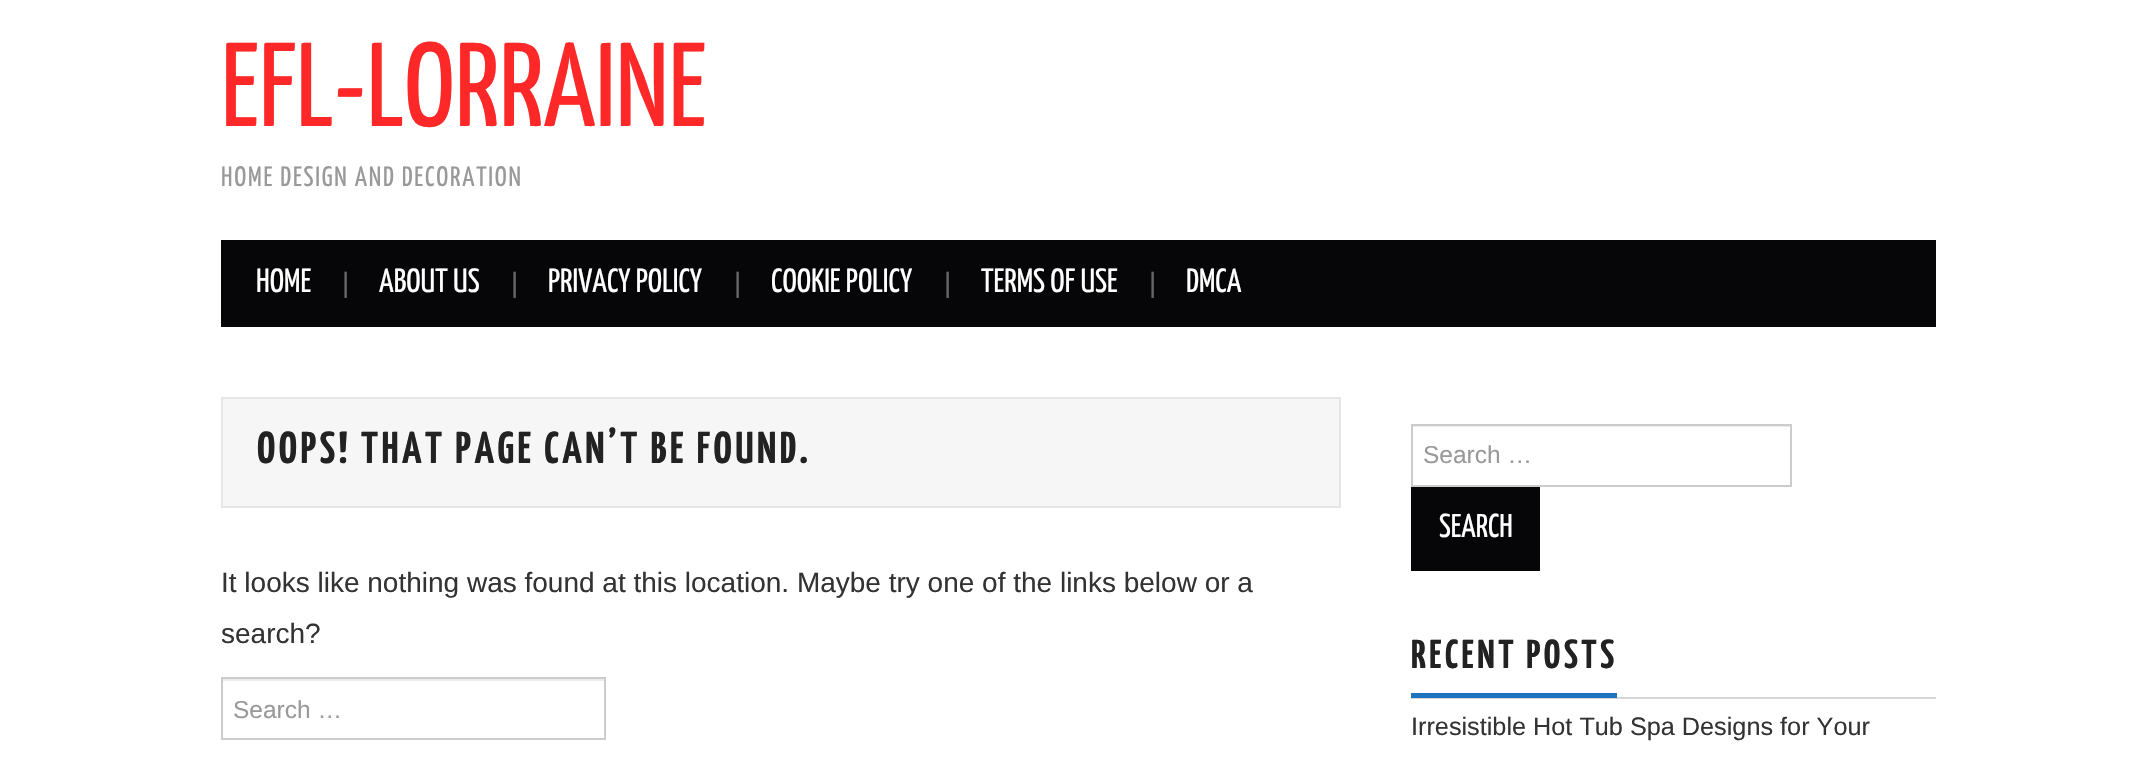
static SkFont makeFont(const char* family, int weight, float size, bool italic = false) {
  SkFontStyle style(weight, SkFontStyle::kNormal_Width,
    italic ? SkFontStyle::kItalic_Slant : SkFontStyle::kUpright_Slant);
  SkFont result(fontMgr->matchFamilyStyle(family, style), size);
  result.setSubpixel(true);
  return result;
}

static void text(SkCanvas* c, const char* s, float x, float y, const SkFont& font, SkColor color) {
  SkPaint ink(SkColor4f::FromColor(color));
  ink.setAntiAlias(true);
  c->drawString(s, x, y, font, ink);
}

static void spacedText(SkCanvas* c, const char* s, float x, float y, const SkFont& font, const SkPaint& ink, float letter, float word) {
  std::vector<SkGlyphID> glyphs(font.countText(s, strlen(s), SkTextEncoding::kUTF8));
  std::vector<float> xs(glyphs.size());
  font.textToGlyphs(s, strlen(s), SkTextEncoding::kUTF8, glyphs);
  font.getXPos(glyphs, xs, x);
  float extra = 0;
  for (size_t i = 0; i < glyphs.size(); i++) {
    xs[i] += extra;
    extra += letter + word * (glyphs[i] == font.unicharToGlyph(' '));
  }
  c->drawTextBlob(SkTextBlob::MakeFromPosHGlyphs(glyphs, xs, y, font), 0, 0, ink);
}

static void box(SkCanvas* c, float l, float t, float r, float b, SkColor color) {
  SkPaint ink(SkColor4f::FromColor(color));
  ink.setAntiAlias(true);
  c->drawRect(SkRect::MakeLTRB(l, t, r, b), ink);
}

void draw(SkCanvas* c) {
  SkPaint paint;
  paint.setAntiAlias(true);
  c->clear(0xffffffff);
  SkFont face1 = makeFont("Yanone Kaffeesatz", 400, 119);
  text(c, "EFL-LORRAINE", 221, 126, face1, 0xffff2828);
  SkFont face2 = makeFont("Yanone Kaffeesatz", 400, 28);
  paint.setColor(0xff999999);
  spacedText(c, "HOME DESIGN AND DECORATION", 221, 186, face2, paint, 1.75f, 0);
  box(c, 221, 240, 1936, 327, 0xff060608);
  SkFont face3 = makeFont("Yanone Kaffeesatz", 400, 33.5f);
  text(c, "HOME", 256, 292, face3, 0xffffffff);
  SkFont face4 = makeFont("Liberation Sans", 400, 28);
  text(c, "|", 342, 292, face4, 0xff666666);
  text(c, "ABOUT US", 379, 292, face3, 0xffffffff);
  text(c, "|", 511, 292, face4, 0xff666666);
  text(c, "PRIVACY POLICY", 548, 292, face3, 0xffffffff);
  text(c, "|", 734, 292, face4, 0xff666666);
  text(c, "COOKIE POLICY", 771, 292, face3, 0xffffffff);
  text(c, "|", 944, 292, face4, 0xff666666);
  text(c, "TERMS OF USE", 981, 292, face3, 0xffffffff);
  text(c, "|", 1149, 292, face4, 0xff666666);
  text(c, "DMCA", 1186, 292, face3, 0xffffffff);
  paint.setColor(0xfff6f6f6);
  c->drawRect(SkRect::MakeLTRB(222, 398, 1340, 507), paint);
  paint.setStyle(SkPaint::kStroke_Style);
  paint.setStrokeWidth(2);
  paint.setColor(0xffe6e6e6);
  c->drawRect(SkRect::MakeLTRB(222, 398, 1340, 507), paint);
  SkFont face5 = makeFont("Yanone Kaffeesatz", 700, 44.75f);
  paint.setStyle(SkPaint::kFill_Style);
  paint.setColor(0xff222222);
  spacedText(c, "OOPS! THAT PAGE CAN’T BE FOUND.", 257, 463, face5, paint, 3.5f, 0);
  text(c, "It looks like nothing was found at this location. Maybe try one of the links below or a", 221, 592, face4, 0xff333333);
  text(c, "search?", 221, 643, face4, 0xff333333);
  box(c, 222, 679, 604, 681, 0xffececec);
  paint.setStyle(SkPaint::kStroke_Style);
  paint.setColor(0xffcccccc);
  c->drawRect(SkRect::MakeLTRB(222, 678, 605, 739), paint);
  SkFont face6 = makeFont("Liberation Sans", 400, 24.5f);
  text(c, "Search …", 233, 718, face6, 0xff999999);
  box(c, 1412, 426, 1790, 427, 0xffececec);
  c->drawRect(SkRect::MakeLTRB(1412, 425, 1791, 486), paint);
  text(c, "Search …", 1423, 463, face6, 0xff999999);
  box(c, 1411, 487, 1540, 571, 0xff060608);
  SkFont face7 = makeFont("Yanone Kaffeesatz", 400, 33);
  text(c, "SEARCH", 1439, 537, face7, 0xffffffff);
  box(c, 1411, 697, 1936, 699, 0xffd6d6d6);
  box(c, 1411, 693, 1617, 698, 0xff1e73be);
  SkFont face8 = makeFont("Yanone Kaffeesatz", 700, 40.5f);
  paint.setStyle(SkPaint::kFill_Style);
  paint.setColor(0xff222222);
  spacedText(c, "RECENT POSTS", 1411, 668, face8, paint, 3.5f, 0);
  SkFont face9 = makeFont("Liberation Sans", 400, 25.25f);
  text(c, "Irresistible Hot Tub Spa Designs for Your", 1411, 735, face9, 0xff333333);
}
